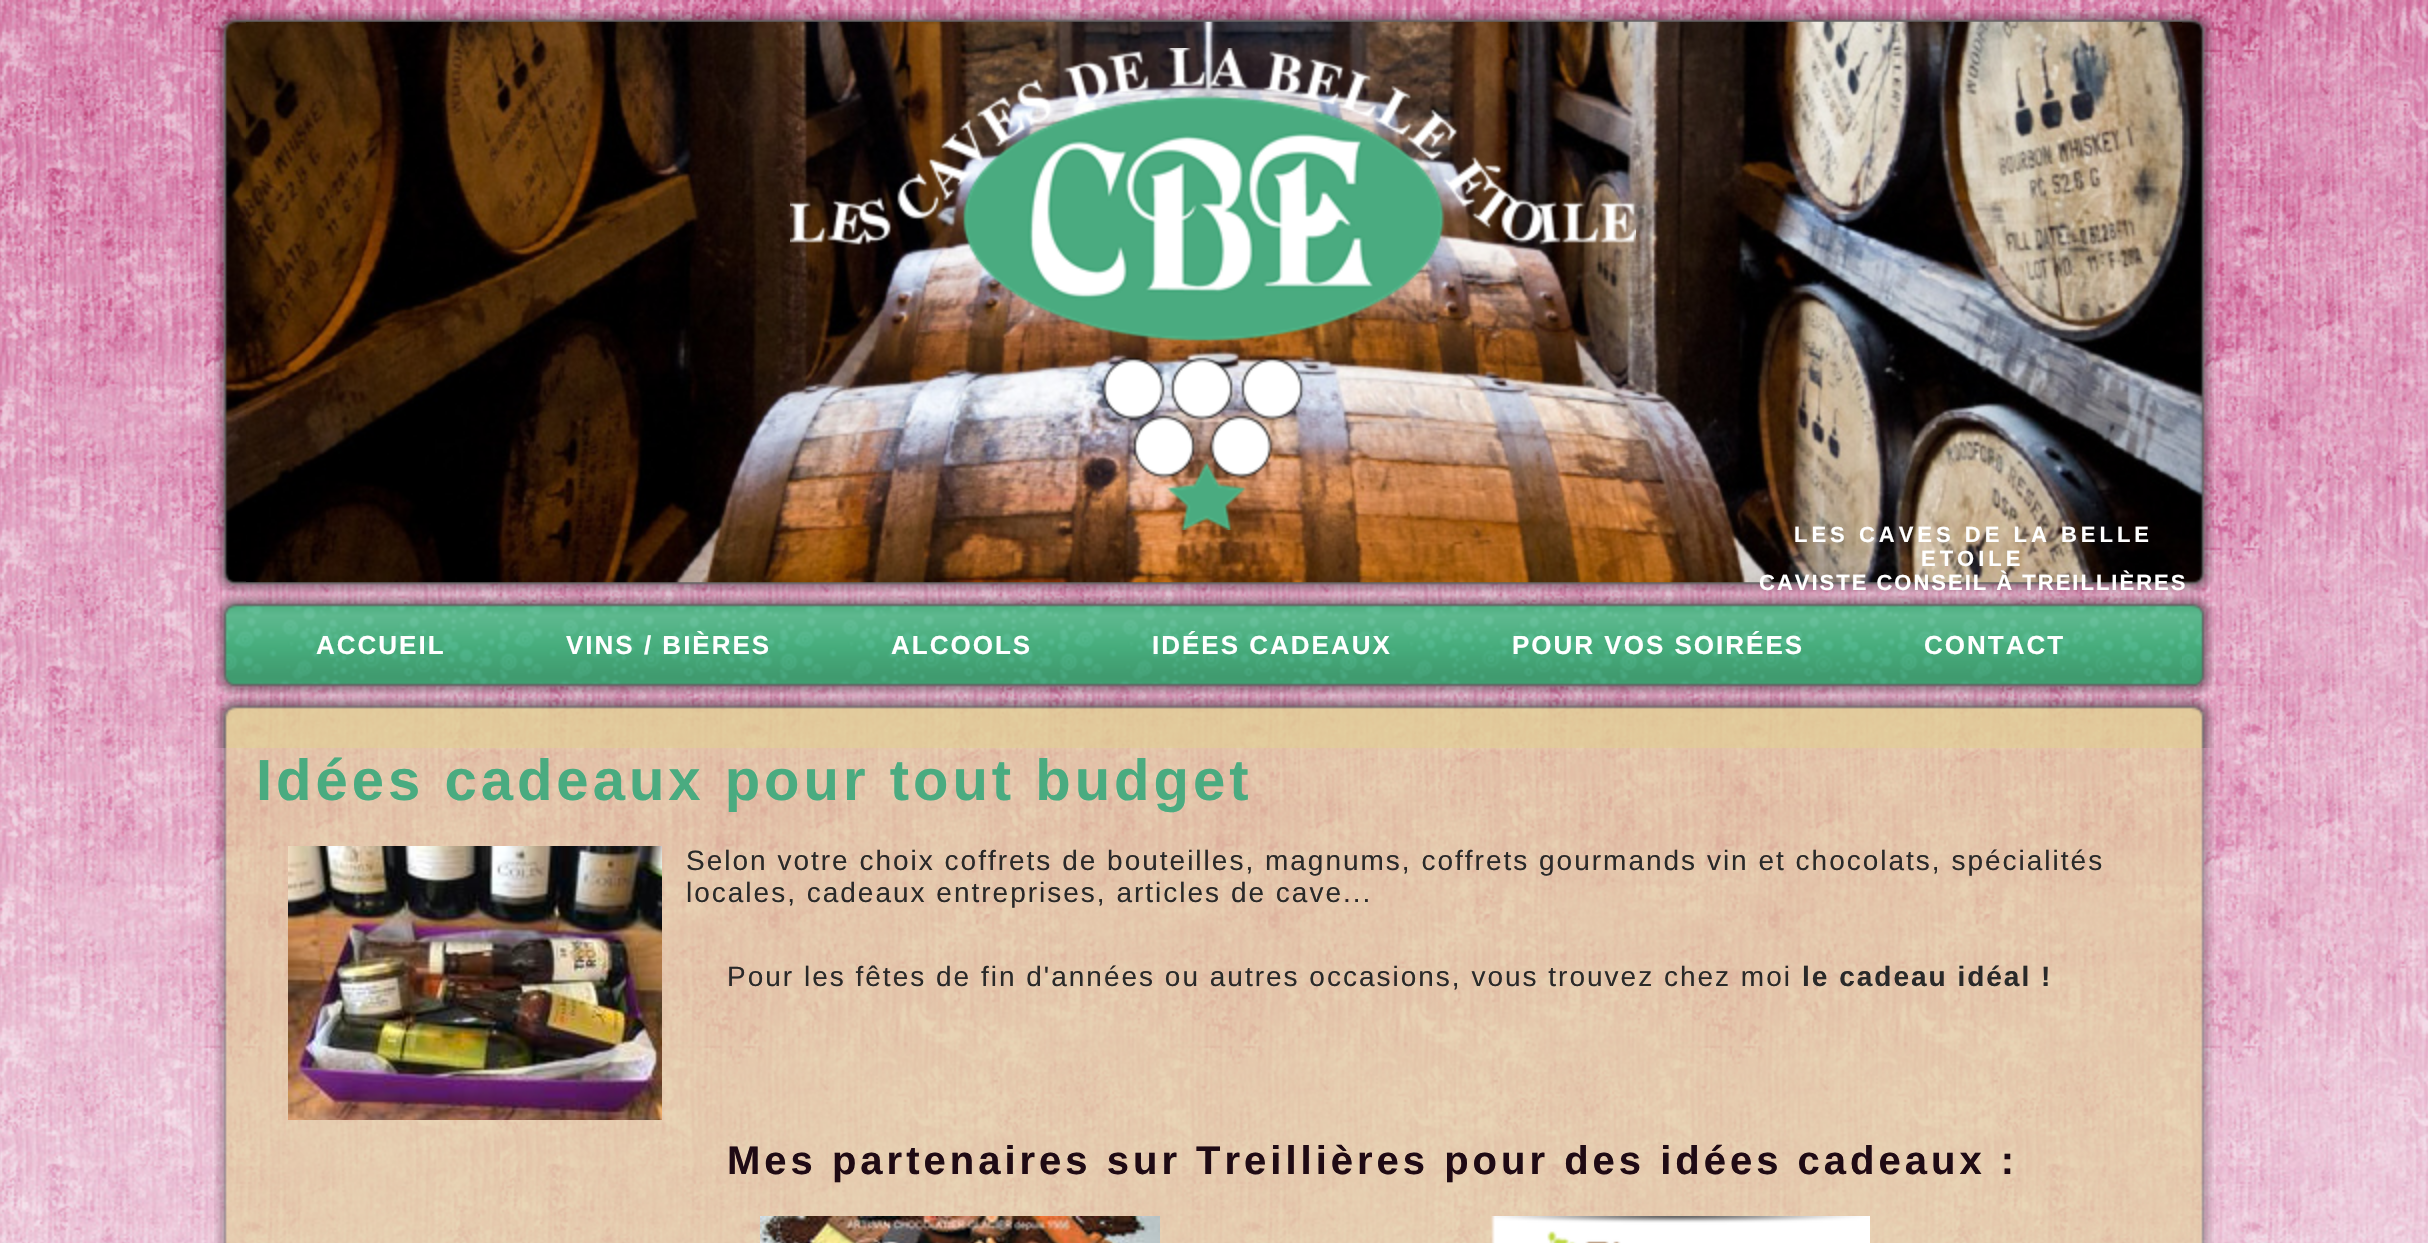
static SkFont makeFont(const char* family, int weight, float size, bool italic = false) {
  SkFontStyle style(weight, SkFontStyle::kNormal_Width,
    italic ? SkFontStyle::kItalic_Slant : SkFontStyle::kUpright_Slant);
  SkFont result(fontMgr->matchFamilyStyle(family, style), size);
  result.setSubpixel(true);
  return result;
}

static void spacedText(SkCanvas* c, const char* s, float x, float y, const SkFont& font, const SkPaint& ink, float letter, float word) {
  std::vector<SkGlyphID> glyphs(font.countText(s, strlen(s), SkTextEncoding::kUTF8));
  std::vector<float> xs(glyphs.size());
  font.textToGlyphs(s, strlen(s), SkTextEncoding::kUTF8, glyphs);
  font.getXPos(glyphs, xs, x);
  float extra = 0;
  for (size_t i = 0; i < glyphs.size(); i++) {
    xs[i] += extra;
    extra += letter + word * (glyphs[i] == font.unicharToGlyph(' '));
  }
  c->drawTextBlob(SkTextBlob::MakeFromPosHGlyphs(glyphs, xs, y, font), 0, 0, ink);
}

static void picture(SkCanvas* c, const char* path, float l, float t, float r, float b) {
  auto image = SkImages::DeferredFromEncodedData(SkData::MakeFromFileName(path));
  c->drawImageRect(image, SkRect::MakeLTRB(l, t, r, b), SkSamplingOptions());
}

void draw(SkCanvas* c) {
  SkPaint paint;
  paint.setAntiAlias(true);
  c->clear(0xffffffff);
  picture(c, "img_01.png", 0, 0, 2428, 1243);
  picture(c, "img_02.png", 214, 10, 2214, 594);
  picture(c, "img_03.png", 246, 22, 2182, 582);
  picture(c, "img_04.png", 790, 48, 1636, 530);
  SkFont face1 = makeFont("Liberation Sans", 700, 22);
  paint.setColor(0xffffffff);
  spacedText(c, "LES CAVES DE LA BELLE", 1794, 542, face1, paint, 4, 0);
  spacedText(c, "ETOILE", 1921, 566, face1, paint, 4, 0);
  spacedText(c, "CAVISTE CONSEIL À TREILLIÈRES", 1759, 590, face1, paint, 2, 0);
  picture(c, "img_05.png", 214, 594, 2182, 696);
  picture(c, "img_06.png", 2182, 594, 2214, 696);
  SkFont face2 = makeFont("Liberation Sans", 700, 26);
  spacedText(c, "ACCUEIL", 316, 654, face2, paint, 2, 0);
  spacedText(c, "VINS / BIÈRES", 566, 654, face2, paint, 2, 0);
  spacedText(c, "ALCOOLS", 891, 654, face2, paint, 2, 0);
  spacedText(c, "IDÉES CADEAUX", 1152, 654, face2, paint, 2, 0);
  spacedText(c, "POUR VOS SOIRÉES", 1512, 654, face2, paint, 2, 0);
  spacedText(c, "CONTACT", 1924, 654, face2, paint, 2, 0);
  picture(c, "img_07.png", 214, 696, 2162, 748);
  picture(c, "img_08.png", 214, 696, 2162, 748);
  picture(c, "img_09.png", 2162, 696, 2214, 748);
  picture(c, "img_10.png", 2162, 696, 2214, 748);
  picture(c, "img_11.png", 214, 748, 2162, 1243);
  picture(c, "img_12.png", 2162, 748, 2214, 1243);
  SkFont face3 = makeFont("Liberation Sans", 700, 58);
  paint.setColor(0xff4aab80);
  spacedText(c, "Idées cadeaux pour tout budget", 256, 800, face3, paint, 4, 0);
  picture(c, "img_13.png", 288, 846, 662, 1120);
  SkFont face4 = makeFont("Liberation Sans", 400, 28);
  paint.setColor(0xff292929);
  spacedText(c, "Selon votre choix coffrets de bouteilles, magnums, coffrets gourmands vin et chocolats, spécialités", 686, 870, face4, paint, 2, 0);
  spacedText(c, "locales, cadeaux entreprises, articles de cave...", 686, 902, face4, paint, 2, 0);
  spacedText(c, "Pour les fêtes de fin d'années ou autres occasions, vous trouvez chez moi", 727, 986, face4, paint, 2, 0);
  SkFont face5 = makeFont("Liberation Sans", 700, 28);
  spacedText(c, "le cadeau idéal !", 1802, 986, face5, paint, 2, 0);
  SkFont face6 = makeFont("Liberation Sans", 700, 40);
  paint.setColor(0xff1f0a14);
  spacedText(c, "Mes partenaires sur Treillières pour des idées cadeaux :", 727, 1174, face6, paint, 4, 0);
  picture(c, "img_14.png", 760, 1216, 1160, 1243);
  picture(c, "img_15.png", 1491, 1216, 1870, 1243);
}
